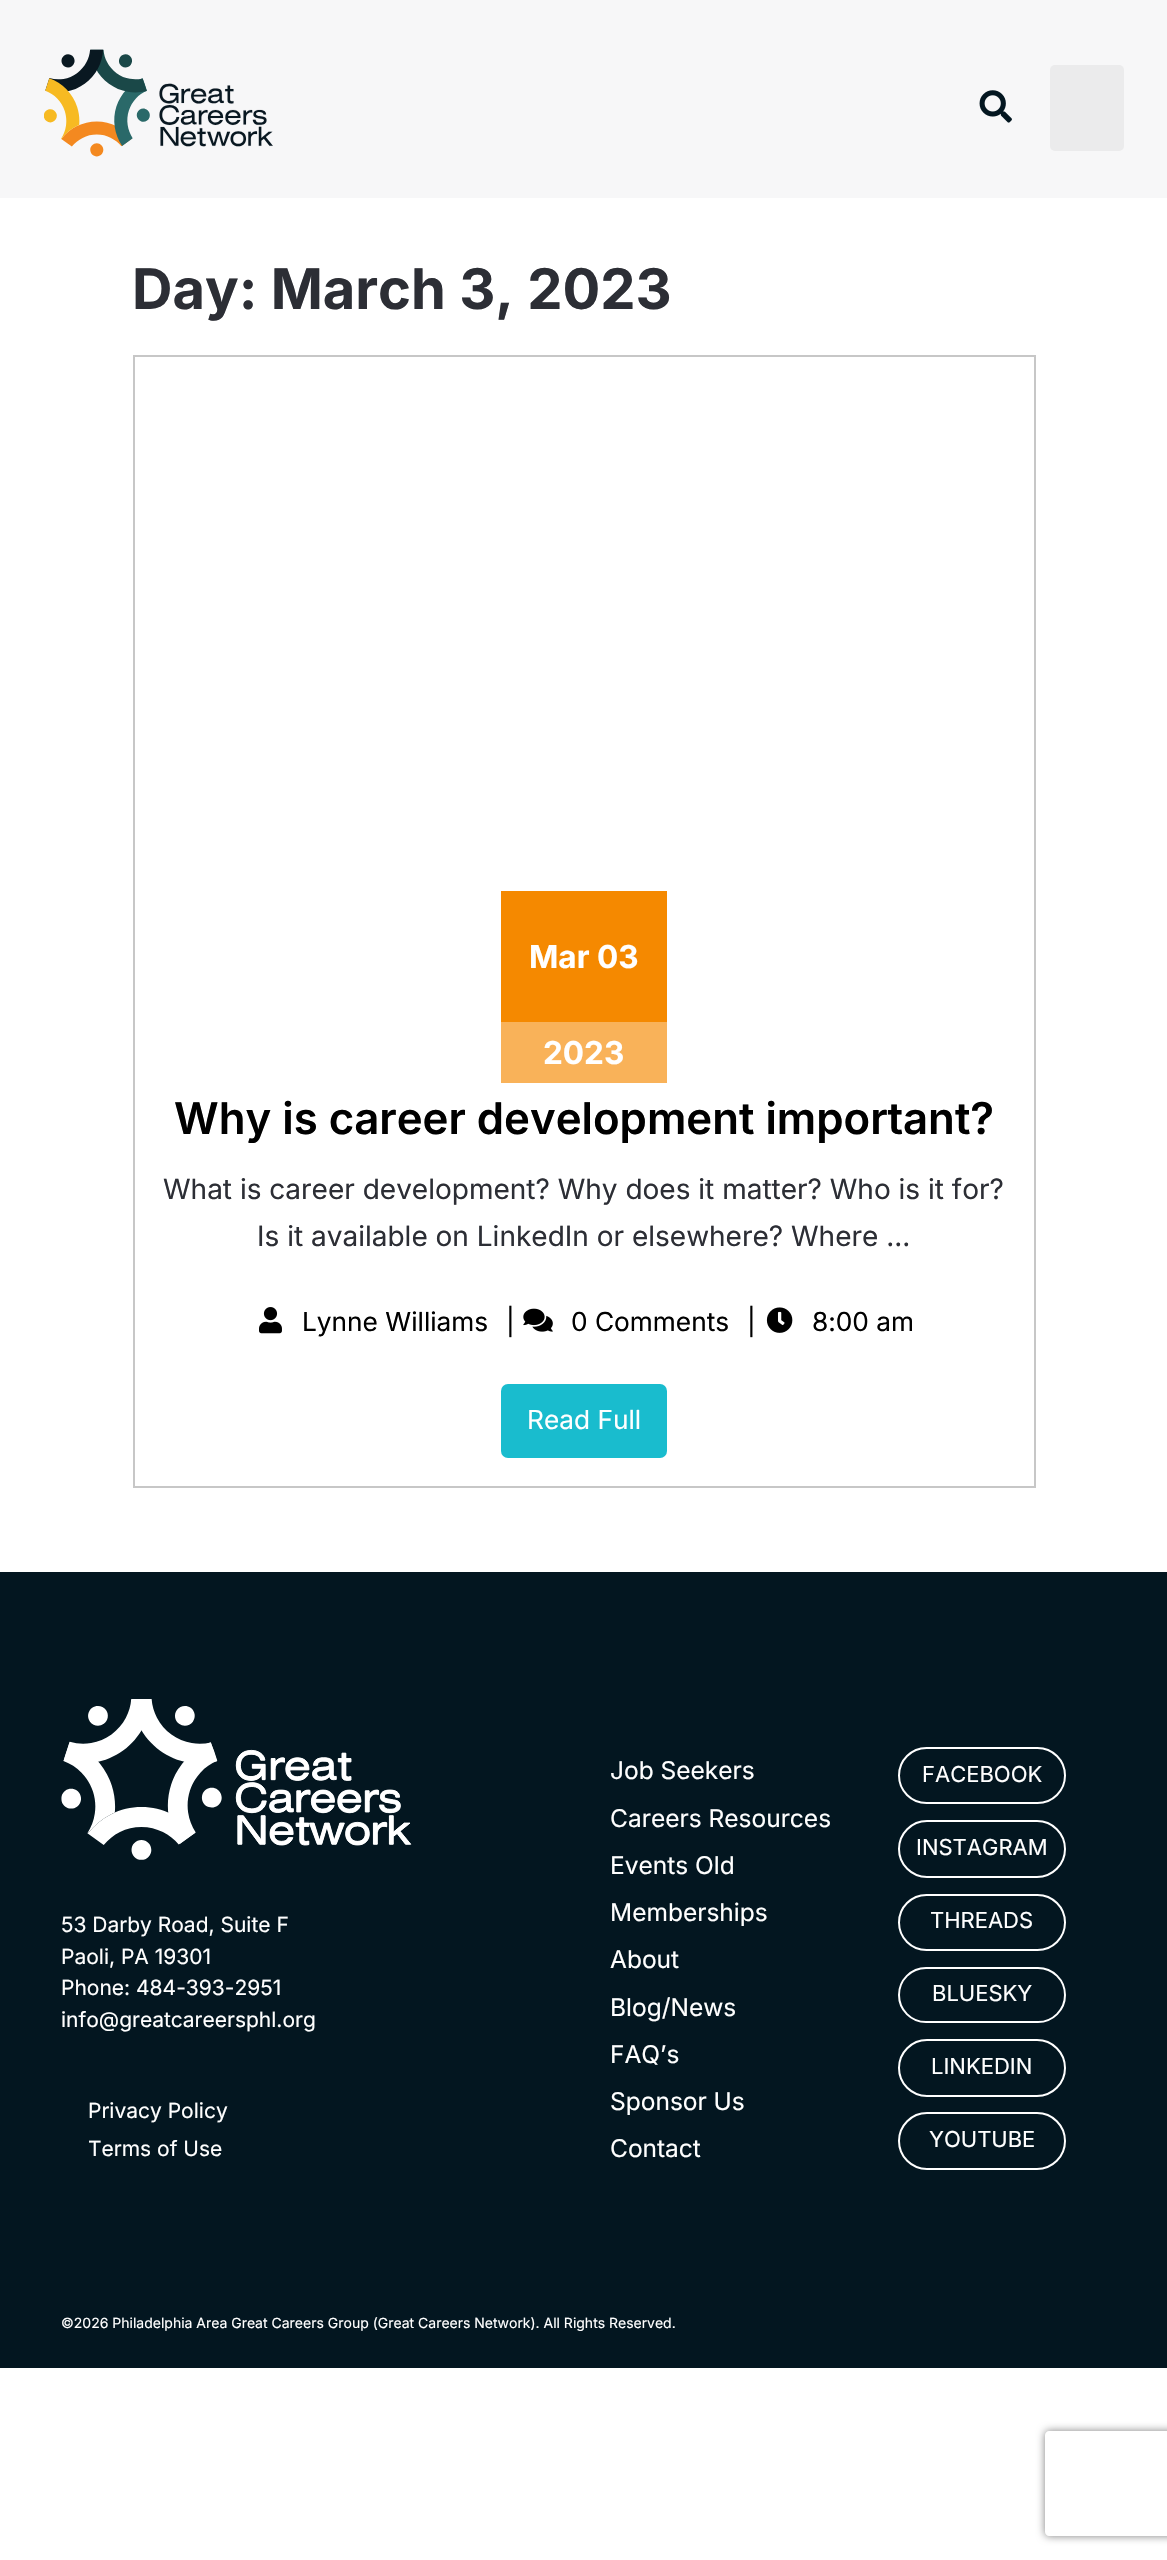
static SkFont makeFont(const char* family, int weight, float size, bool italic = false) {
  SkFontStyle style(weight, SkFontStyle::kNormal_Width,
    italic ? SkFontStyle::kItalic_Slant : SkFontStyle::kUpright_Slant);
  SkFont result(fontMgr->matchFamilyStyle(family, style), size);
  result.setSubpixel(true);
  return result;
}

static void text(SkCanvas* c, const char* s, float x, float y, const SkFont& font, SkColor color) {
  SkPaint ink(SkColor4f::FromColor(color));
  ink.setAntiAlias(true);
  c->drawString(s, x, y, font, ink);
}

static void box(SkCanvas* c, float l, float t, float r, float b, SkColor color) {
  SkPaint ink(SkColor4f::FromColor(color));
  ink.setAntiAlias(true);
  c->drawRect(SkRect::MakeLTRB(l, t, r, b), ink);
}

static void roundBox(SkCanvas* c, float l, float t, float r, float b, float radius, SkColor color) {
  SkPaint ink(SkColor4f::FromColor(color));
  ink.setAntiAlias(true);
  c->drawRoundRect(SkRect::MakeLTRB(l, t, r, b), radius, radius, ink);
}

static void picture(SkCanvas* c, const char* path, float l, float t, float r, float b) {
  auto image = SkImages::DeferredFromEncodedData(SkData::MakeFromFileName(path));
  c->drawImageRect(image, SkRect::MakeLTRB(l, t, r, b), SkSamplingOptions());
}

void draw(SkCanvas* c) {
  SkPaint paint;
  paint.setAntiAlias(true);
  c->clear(0xffffffff);
  box(c, 0, 0, 1167, 198, 0xfff7f7f8);
  picture(c, "img_01.png", 44, 49, 273, 157);
  picture(c, "img_02.png", 979, 90, 1012, 123);
  roundBox(c, 1050, 65, 1124, 151, 5, 0xffebebec);
  SkFont face1 = makeFont("Inter", 700, 56);
  text(c, "Day: March 3, 2023", 132, 309, face1, 0xff2c2e35);
  paint.setStyle(SkPaint::kStroke_Style);
  paint.setStrokeWidth(2);
  paint.setColor(0xffc7c7c7);
  c->drawRect(SkRect::MakeLTRB(134, 356, 1035, 1487), paint);
  box(c, 501, 891, 667, 1022, 0xfff58900);
  SkFont face2 = makeFont("Inter", 700, 31.5f);
  text(c, "Mar 03", 529, 968, face2, 0xffffffff);
  box(c, 501, 1022, 667, 1083, 0xfff9b259);
  text(c, "2023", 543, 1064, face2, 0xffffffff);
  SkFont face3 = makeFont("Inter", 600, 43.75f);
  text(c, "Why is career development important?", 174, 1134, face3, 0xff000000);
  SkFont face4 = makeFont("Inter", 400, 28);
  text(c, "What is career development? Why does it matter? Who is it for?", 163, 1199, face4, 0xff2c2e35);
  text(c, "Is it available on LinkedIn or elsewhere? Where ...", 257, 1246, face4, 0xff2c2e35);
  picture(c, "img_03.png", 259, 1307, 282, 1334);
  SkFont face5 = makeFont("Inter", 400, 26.25f);
  text(c, "Lynne Williams", 302, 1331, face5, 0xff000000);
  text(c, "|", 506, 1331, face5, 0xff000000);
  picture(c, "img_04.png", 523, 1308, 553, 1332);
  text(c, "0 Comments", 571, 1331, face5, 0xff000000);
  text(c, "|", 747, 1331, face5, 0xff000000);
  picture(c, "img_05.png", 766, 1307, 793, 1333);
  text(c, "8:00 am", 812, 1331, face5, 0xff000000);
  roundBox(c, 501, 1384, 667, 1458, 7, 0xff19bcce);
  text(c, "Read Full", 527, 1429, face5, 0xffffffff);
  box(c, 0, 1572, 1167, 2368, 0xff031620);
  picture(c, "img_06.png", 61, 1699, 412, 1860);
  SkFont face6 = makeFont("Inter", 400, 21);
  text(c, "53 Darby Road, Suite F", 61, 1932, face6, 0xffffffff);
  text(c, "Paoli, PA 19301", 61, 1964, face6, 0xffffffff);
  text(c, "Phone: 484-393-2951", 61, 1995, face6, 0xffffffff);
  text(c, "info@greatcareersphl.org", 61, 2027, face6, 0xffffffff);
  text(c, "Privacy Policy", 88, 2118, face6, 0xffffffff);
  text(c, "Terms of Use", 88, 2156, face6, 0xffffffff);
  SkFont face7 = makeFont("Inter", 400, 24.5f);
  text(c, "Job Seekers", 610, 1779, face7, 0xffffffff);
  text(c, "Careers Resources", 610, 1827, face7, 0xffffffff);
  text(c, "Events Old", 610, 1874, face7, 0xffffffff);
  text(c, "Memberships", 610, 1921, face7, 0xffffffff);
  text(c, "About", 610, 1968, face7, 0xffffffff);
  text(c, "Blog/News", 610, 2016, face7, 0xffffffff);
  text(c, "FAQ’s", 610, 2063, face7, 0xffffffff);
  text(c, "Sponsor Us", 610, 2110, face7, 0xffffffff);
  text(c, "Contact", 610, 2157, face7, 0xffffffff);
  paint.setColor(0xffffffff);
  c->drawRoundRect(SkRect::MakeLTRB(899, 1748, 1065, 1803), 27.5f, 27.5f, paint);
  SkFont face8 = makeFont("Inter", 400, 22);
  text(c, "FACEBOOK", 922, 1782, face8, 0xffffffff);
  c->drawRoundRect(SkRect::MakeLTRB(899, 1821, 1065, 1877), 28, 28, paint);
  text(c, "INSTAGRAM", 916, 1855, face8, 0xffffffff);
  c->drawRoundRect(SkRect::MakeLTRB(899, 1895, 1065, 1950), 27.5f, 27.5f, paint);
  text(c, "THREADS", 930, 1928, face8, 0xffffffff);
  c->drawRoundRect(SkRect::MakeLTRB(899, 1968, 1065, 2022), 27, 27, paint);
  text(c, "BLUESKY", 932, 2001, face8, 0xffffffff);
  c->drawRoundRect(SkRect::MakeLTRB(899, 2040, 1065, 2096), 28, 28, paint);
  text(c, "LINKEDIN", 931, 2074, face8, 0xffffffff);
  c->drawRoundRect(SkRect::MakeLTRB(899, 2113, 1065, 2169), 28, 28, paint);
  text(c, "YOUTUBE", 929, 2147, face8, 0xffffffff);
  SkFont face9 = makeFont("Inter", 400, 14);
  text(c, "©2026 Philadelphia Area Great Careers Group (Great Careers Network). All Rights Reserved.", 61, 2328, face9, 0xffffffff);
  c->save();
  c->clipPath(SkPathBuilder(SkPathFillType::kEvenOdd).moveTo(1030, 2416).lineTo(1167, 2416).lineTo(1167, 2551).lineTo(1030, 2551).close().moveTo(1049, 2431).lineTo(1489, 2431).cubicTo(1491, 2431, 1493, 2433, 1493, 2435).lineTo(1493, 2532).cubicTo(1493, 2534, 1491, 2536, 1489, 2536).lineTo(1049, 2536).cubicTo(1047, 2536, 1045, 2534, 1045, 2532).lineTo(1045, 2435).cubicTo(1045, 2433, 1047, 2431, 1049, 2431).close().detach(), true);
  paint.setStyle(SkPaint::kFill_Style);
  paint.setColor(0xff808080);
  paint.setMaskFilter(SkMaskFilter::MakeBlur(kNormal_SkBlurStyle, 4.5f));
  c->drawRoundRect(SkRect::MakeLTRB(1045, 2431, 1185, 2536), 4, 4, paint);
  paint.setMaskFilter(nullptr);
  c->restore();
}
